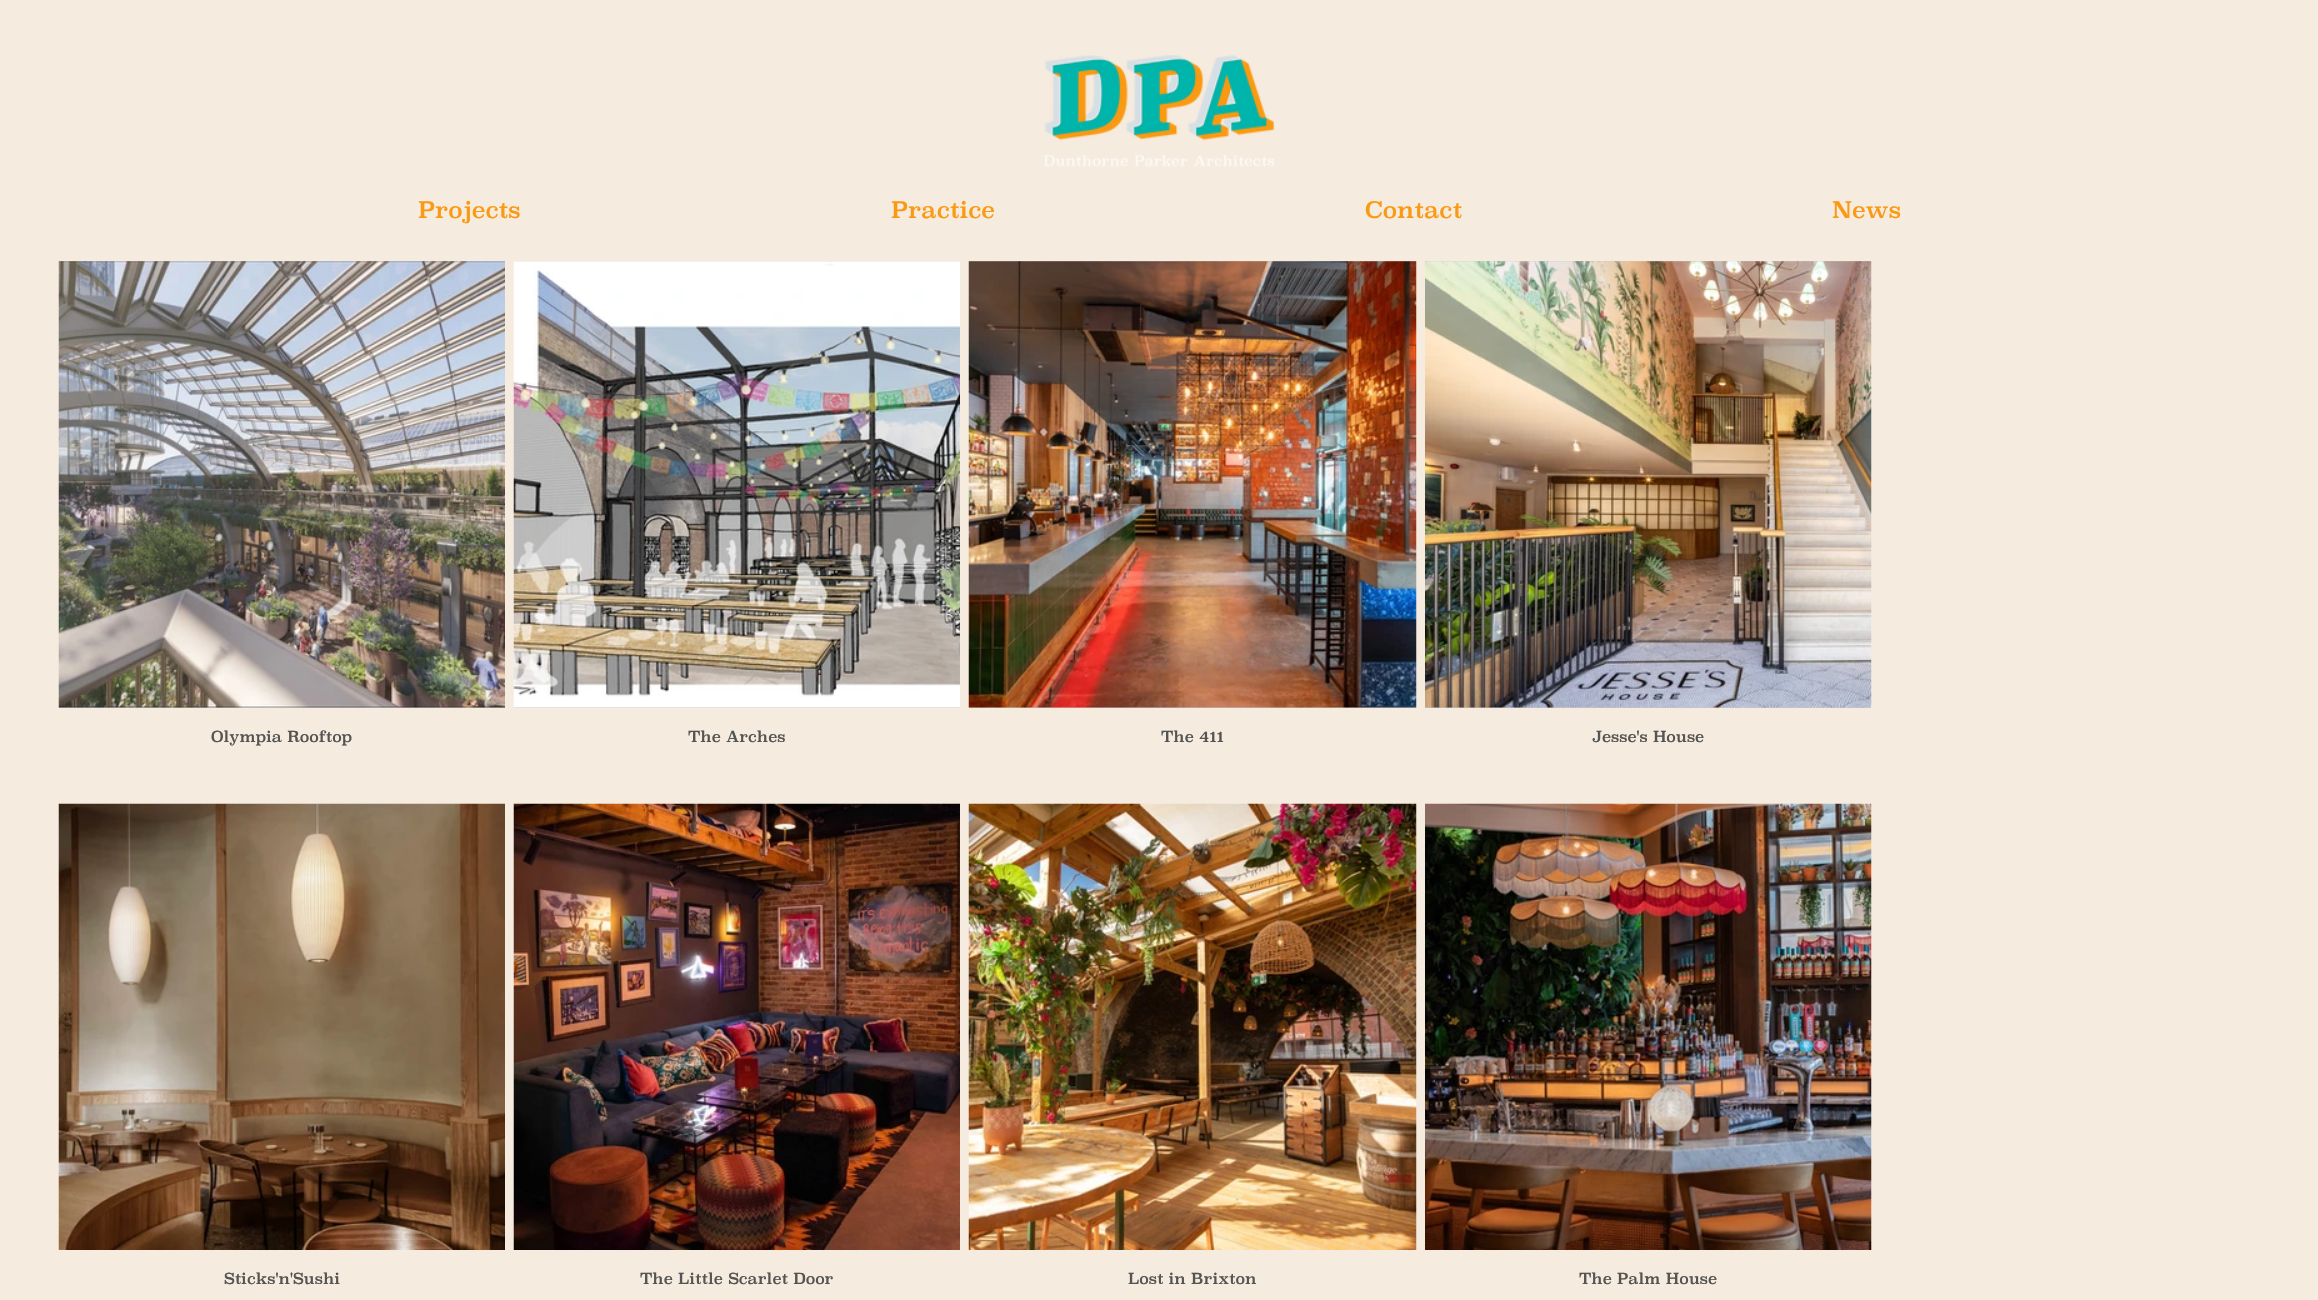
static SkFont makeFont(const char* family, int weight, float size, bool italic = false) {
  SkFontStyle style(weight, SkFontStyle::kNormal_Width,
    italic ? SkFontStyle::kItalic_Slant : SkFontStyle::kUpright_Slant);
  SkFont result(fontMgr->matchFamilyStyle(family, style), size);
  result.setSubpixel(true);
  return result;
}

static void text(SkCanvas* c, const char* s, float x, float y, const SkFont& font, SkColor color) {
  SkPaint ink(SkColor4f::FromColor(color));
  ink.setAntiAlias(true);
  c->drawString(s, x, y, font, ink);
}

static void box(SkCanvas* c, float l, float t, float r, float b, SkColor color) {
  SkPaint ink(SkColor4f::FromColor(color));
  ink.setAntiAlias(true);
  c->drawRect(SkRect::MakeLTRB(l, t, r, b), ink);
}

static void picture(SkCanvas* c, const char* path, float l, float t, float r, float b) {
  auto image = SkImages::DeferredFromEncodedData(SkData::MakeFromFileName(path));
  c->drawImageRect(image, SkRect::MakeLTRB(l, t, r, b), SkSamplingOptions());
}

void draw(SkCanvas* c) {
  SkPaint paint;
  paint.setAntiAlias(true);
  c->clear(0xfff6ebdf);
  picture(c, "img_01.png", 1044, 55, 1275, 167);
  SkFont face1 = makeFont("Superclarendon", 400, 22.5f);
  text(c, "Projects", 418, 218, face1, 0xfffa9a12);
  text(c, "Practice", 891, 218, face1, 0xfffa9a12);
  text(c, "Contact", 1365, 218, face1, 0xfffa9a12);
  text(c, "News", 1832, 218, face1, 0xfffa9a12);
  box(c, 59, 261, 505, 708, 0xffc7c7c7);
  picture(c, "img_02.png", 58, 261, 505, 708);
  SkFont face2 = makeFont("Superclarendon", 400, 15);
  text(c, "Olympia Rooftop", 211, 742, face2, 0xff545452);
  box(c, 514, 261, 960, 708, 0xffc7c7c7);
  picture(c, "img_03.png", 513, 261, 960, 708);
  text(c, "The Arches", 688, 742, face2, 0xff545452);
  box(c, 969, 261, 1416, 708, 0xffc7c7c7);
  picture(c, "img_04.png", 968, 261, 1417, 708);
  text(c, "The 411", 1161, 742, face2, 0xff545452);
  box(c, 1425, 261, 1871, 708, 0xffc7c7c7);
  picture(c, "img_05.png", 1425, 261, 1872, 708);
  text(c, "Jesse's House", 1592, 742, face2, 0xff545452);
  picture(c, "img_06.png", 58, 803, 505, 1250);
  text(c, "Sticks'n'Sushi", 224, 1284, face2, 0xff545452);
  picture(c, "img_07.png", 513, 803, 960, 1250);
  text(c, "The Little Scarlet Door", 640, 1284, face2, 0xff545452);
  picture(c, "img_08.png", 968, 803, 1417, 1250);
  text(c, "Lost in Brixton", 1128, 1284, face2, 0xff545452);
  picture(c, "img_09.png", 1425, 803, 1872, 1250);
  text(c, "The Palm House", 1579, 1284, face2, 0xff545452);
}
